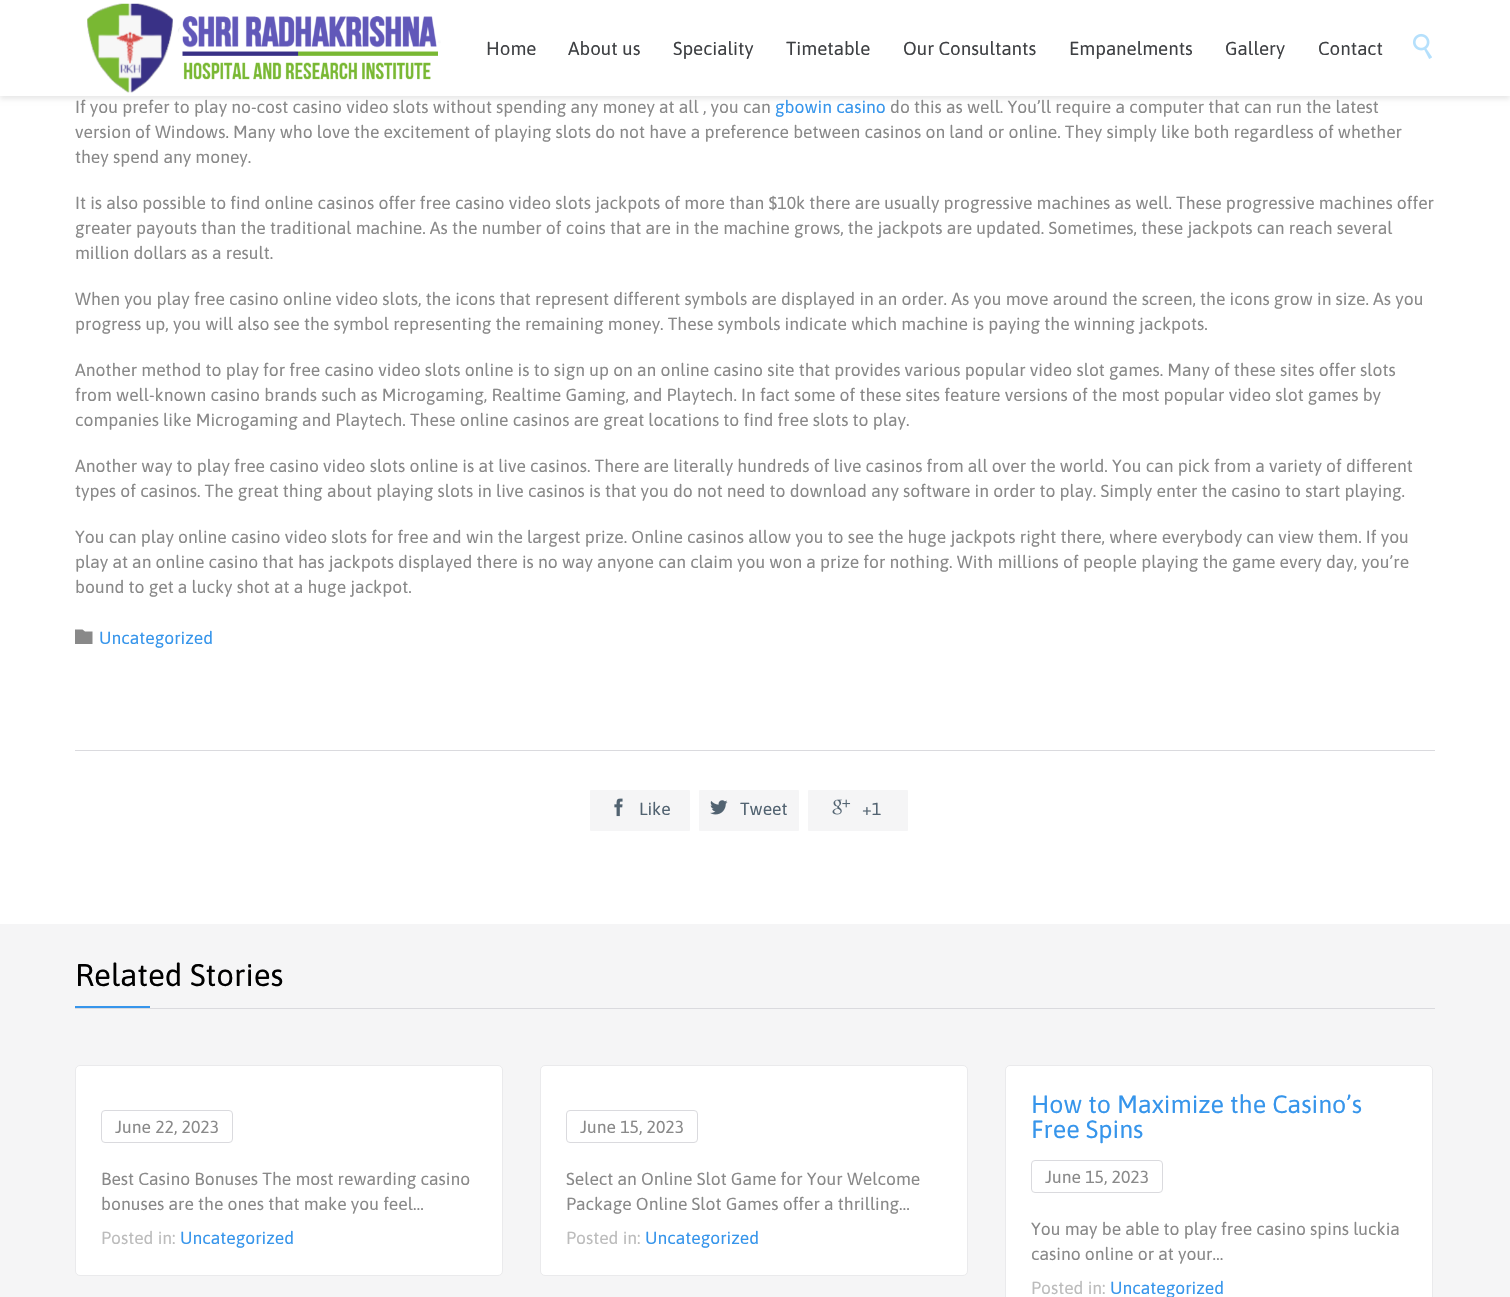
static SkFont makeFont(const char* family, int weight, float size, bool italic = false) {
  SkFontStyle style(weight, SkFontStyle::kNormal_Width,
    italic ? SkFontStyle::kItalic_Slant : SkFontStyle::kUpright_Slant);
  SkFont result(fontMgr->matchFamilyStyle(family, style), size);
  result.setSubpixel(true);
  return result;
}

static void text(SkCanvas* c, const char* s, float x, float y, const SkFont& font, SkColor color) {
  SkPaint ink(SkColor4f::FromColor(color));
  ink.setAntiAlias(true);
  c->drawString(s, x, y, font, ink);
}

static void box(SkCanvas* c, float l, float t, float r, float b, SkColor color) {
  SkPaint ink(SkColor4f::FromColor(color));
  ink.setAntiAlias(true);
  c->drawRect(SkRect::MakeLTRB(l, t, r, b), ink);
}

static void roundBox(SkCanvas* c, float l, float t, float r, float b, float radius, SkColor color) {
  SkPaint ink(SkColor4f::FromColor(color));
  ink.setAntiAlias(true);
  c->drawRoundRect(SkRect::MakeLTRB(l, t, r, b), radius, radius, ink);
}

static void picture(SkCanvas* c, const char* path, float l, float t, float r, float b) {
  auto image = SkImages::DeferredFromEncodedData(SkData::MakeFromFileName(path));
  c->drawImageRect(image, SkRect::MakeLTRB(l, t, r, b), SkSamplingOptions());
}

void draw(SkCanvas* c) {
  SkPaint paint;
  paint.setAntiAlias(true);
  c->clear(0xffffffff);
  paint.setColor(0x17000000);
  paint.setMaskFilter(SkMaskFilter::MakeBlur(kNormal_SkBlurStyle, 2.5f));
  c->drawRect(SkRect::MakeLTRB(0, -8, 1510, 99), paint);
  paint.setMaskFilter(nullptr);
  box(c, 0, 0, 1510, 96, 0xffffffff);
  picture(c, "img_01.png", 87, 3, 441, 93);
  SkFont face1 = makeFont("Asap", 400, 18.75f);
  text(c, "Home", 486, 55, face1, 0xff3e4043);
  text(c, "About us", 568, 55, face1, 0xff3e4043);
  text(c, "Speciality", 673, 55, face1, 0xff3e4043);
  text(c, "Timetable", 786, 55, face1, 0xff3e4043);
  text(c, "Our Consultants", 903, 55, face1, 0xff3e4043);
  text(c, "Empanelments", 1069, 55, face1, 0xff3e4043);
  text(c, "Gallery", 1225, 55, face1, 0xff3e4043);
  text(c, "Contact", 1318, 55, face1, 0xff3e4043);
  picture(c, "img_02.png", 1413, 33, 1432, 59);
  SkFont face2 = makeFont("Asap", 400, 17.5f);
  text(c, "If you prefer to play no-cost casino video slots without spending any money at all , you can", 75, 113, face2, 0xff898989);
  text(c, "gbowin casino", 775, 113, face2, 0xff3695eb);
  text(c, "do this as well. You’ll require a computer that can run the latest", 890, 113, face2, 0xff898989);
  text(c, "version of Windows. Many who love the excitement of playing slots do not have a preference between casinos on land or online. They simply like both regardless of whether", 75, 138, face2, 0xff898989);
  text(c, "they spend any money.", 75, 163, face2, 0xff898989);
  text(c, "It is also possible to find online casinos offer free casino video slots jackpots of more than $10k there are usually progressive machines as well. These progressive machines offer", 75, 209, face2, 0xff898989);
  text(c, "greater payouts than the traditional machine. As the number of coins that are in the machine grows, the jackpots are updated. Sometimes, these jackpots can reach several", 75, 234, face2, 0xff898989);
  text(c, "million dollars as a result.", 75, 259, face2, 0xff898989);
  text(c, "When you play free casino online video slots, the icons that represent different symbols are displayed in an order. As you move around the screen, the icons grow in size. As you", 75, 305, face2, 0xff898989);
  text(c, "progress up, you will also see the symbol representing the remaining money. These symbols indicate which machine is paying the winning jackpots.", 75, 330, face2, 0xff898989);
  text(c, "Another method to play for free casino video slots online is to sign up on an online casino site that provides various popular video slot games. Many of these sites offer slots", 75, 376, face2, 0xff898989);
  text(c, "from well-known casino brands such as Microgaming, Realtime Gaming, and Playtech. In fact some of these sites feature versions of the most popular video slot games by", 75, 401, face2, 0xff898989);
  text(c, "companies like Microgaming and Playtech. These online casinos are great locations to find free slots to play.", 75, 426, face2, 0xff898989);
  text(c, "Another way to play free casino video slots online is at live casinos. There are literally hundreds of live casinos from all over the world. You can pick from a variety of different", 75, 472, face2, 0xff898989);
  text(c, "types of casinos. The great thing about playing slots in live casinos is that you do not need to download any software in order to play. Simply enter the casino to start playing.", 75, 497, face2, 0xff898989);
  text(c, "You can play online casino video slots for free and win the largest prize. Online casinos allow you to see the huge jackpots right there, where everybody can view them. If you", 75, 543, face2, 0xff898989);
  text(c, "play at an online casino that has jackpots displayed there is no way anyone can claim you won a prize for nothing. With millions of people playing the game every day, you’re", 75, 568, face2, 0xff898989);
  text(c, "bound to get a lucky shot at a huge jackpot.", 75, 593, face2, 0xff898989);
  paint.setColor(0xff898989);
  c->drawPath(SkPathBuilder().moveTo(82.5f, 629.5f).lineTo(85, 631.5f).lineTo(92.5f, 631.5f).lineTo(92.5f, 644).lineTo(75, 644).lineTo(75, 629.5f).close().detach(), paint);
  text(c, "Uncategorized", 99, 644, face2, 0xff3695eb);
  box(c, 75, 750, 1435, 751, 0xffdadade);
  roundBox(c, 590, 790, 690, 831, 1, 0xfff5f5f6);
  picture(c, "img_03.png", 614, 798, 623, 817);
  text(c, "Like", 639, 815, face2, 0xff526371);
  roundBox(c, 699, 790, 799, 831, 1, 0xfff5f5f6);
  picture(c, "img_04.png", 710, 800, 728, 815);
  text(c, "Tweet", 740, 815, face2, 0xff526371);
  roundBox(c, 808, 790, 908, 831, 1, 0xfff5f5f6);
  picture(c, "img_05.png", 832, 799, 851, 815);
  text(c, "+1", 862, 815, face2, 0xff526371);
  box(c, 0, 924, 1510, 1297, 0xfff5f5f6);
  box(c, 75, 1008, 1435, 1009, 0xffdadade);
  SkFont face3 = makeFont("Asap", 400, 31.25f);
  text(c, "Related Stories", 75, 986, face3, 0xff000000);
  box(c, 75, 1006, 150, 1008, 0xff3695eb);
  paint.setColor(0xffffffff);
  c->drawRoundRect(SkRect::MakeLTRB(75.5f, 1065.5f, 502.5f, 1275.5f), 4.5f, 4.5f, paint);
  paint.setStyle(SkPaint::kStroke_Style);
  paint.setStrokeWidth(1);
  paint.setColor(0xffeaeaec);
  c->drawRoundRect(SkRect::MakeLTRB(75.5f, 1065.5f, 502.5f, 1275.5f), 4.5f, 4.5f, paint);
  paint.setColor(0xffdadade);
  c->drawRoundRect(SkRect::MakeLTRB(101.5f, 1110.5f, 232.5f, 1142.5f), 3.5f, 3.5f, paint);
  text(c, "June 22, 2023", 115, 1133, face2, 0xff898989);
  text(c, "Best Casino Bonuses The most rewarding casino", 101, 1185, face2, 0xff898989);
  text(c, "bonuses are the ones that make you feel…", 101, 1210, face2, 0xff898989);
  text(c, "Posted in:", 101, 1244, face2, 0xffbcbcbc);
  text(c, "Uncategorized", 180, 1244, face2, 0xff3695eb);
  paint.setStyle(SkPaint::kFill_Style);
  paint.setColor(0xffffffff);
  c->drawRoundRect(SkRect::MakeLTRB(540.5f, 1065.5f, 967.5f, 1275.5f), 4.5f, 4.5f, paint);
  paint.setStyle(SkPaint::kStroke_Style);
  paint.setColor(0xffeaeaec);
  c->drawRoundRect(SkRect::MakeLTRB(540.5f, 1065.5f, 967.5f, 1275.5f), 4.5f, 4.5f, paint);
  paint.setColor(0xffdadade);
  c->drawRoundRect(SkRect::MakeLTRB(566.5f, 1110.5f, 697.5f, 1142.5f), 3.5f, 3.5f, paint);
  text(c, "June 15, 2023", 580, 1133, face2, 0xff898989);
  text(c, "Select an Online Slot Game for Your Welcome", 566, 1185, face2, 0xff898989);
  text(c, "Package Online Slot Games offer a thrilling…", 566, 1210, face2, 0xff898989);
  text(c, "Posted in:", 566, 1244, face2, 0xffbcbcbc);
  text(c, "Uncategorized", 645, 1244, face2, 0xff3695eb);
  paint.setStyle(SkPaint::kFill_Style);
  paint.setColor(0xffffffff);
  c->drawRoundRect(SkRect::MakeLTRB(1005.5f, 1065.5f, 1432.5f, 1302.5f), 4.5f, 4.5f, paint);
  paint.setStyle(SkPaint::kStroke_Style);
  paint.setColor(0xffeaeaec);
  c->drawRoundRect(SkRect::MakeLTRB(1005.5f, 1065.5f, 1432.5f, 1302.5f), 4.5f, 4.5f, paint);
  SkFont face4 = makeFont("Asap", 400, 25);
  text(c, "How to Maximize the Casino’s", 1031, 1113, face4, 0xff3695eb);
  text(c, "Free Spins", 1031, 1138, face4, 0xff3695eb);
  paint.setColor(0xffdadade);
  c->drawRoundRect(SkRect::MakeLTRB(1031.5f, 1160.5f, 1162.5f, 1192.5f), 3.5f, 3.5f, paint);
  text(c, "June 15, 2023", 1045, 1183, face2, 0xff898989);
  text(c, "You may be able to play free casino spins luckia", 1031, 1235, face2, 0xff898989);
  text(c, "casino online or at your…", 1031, 1260, face2, 0xff898989);
  text(c, "Posted in:", 1031, 1294, face2, 0xffbcbcbc);
  text(c, "Uncategorized", 1110, 1294, face2, 0xff3695eb);
}
